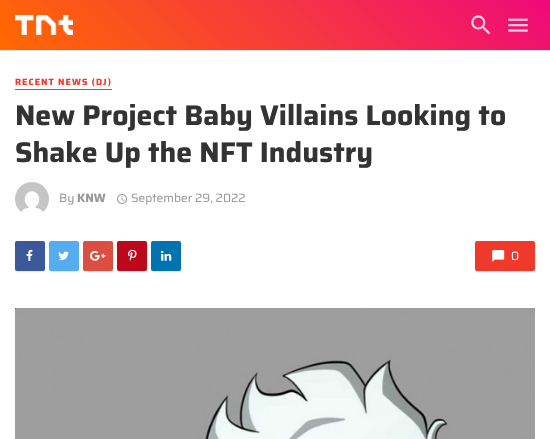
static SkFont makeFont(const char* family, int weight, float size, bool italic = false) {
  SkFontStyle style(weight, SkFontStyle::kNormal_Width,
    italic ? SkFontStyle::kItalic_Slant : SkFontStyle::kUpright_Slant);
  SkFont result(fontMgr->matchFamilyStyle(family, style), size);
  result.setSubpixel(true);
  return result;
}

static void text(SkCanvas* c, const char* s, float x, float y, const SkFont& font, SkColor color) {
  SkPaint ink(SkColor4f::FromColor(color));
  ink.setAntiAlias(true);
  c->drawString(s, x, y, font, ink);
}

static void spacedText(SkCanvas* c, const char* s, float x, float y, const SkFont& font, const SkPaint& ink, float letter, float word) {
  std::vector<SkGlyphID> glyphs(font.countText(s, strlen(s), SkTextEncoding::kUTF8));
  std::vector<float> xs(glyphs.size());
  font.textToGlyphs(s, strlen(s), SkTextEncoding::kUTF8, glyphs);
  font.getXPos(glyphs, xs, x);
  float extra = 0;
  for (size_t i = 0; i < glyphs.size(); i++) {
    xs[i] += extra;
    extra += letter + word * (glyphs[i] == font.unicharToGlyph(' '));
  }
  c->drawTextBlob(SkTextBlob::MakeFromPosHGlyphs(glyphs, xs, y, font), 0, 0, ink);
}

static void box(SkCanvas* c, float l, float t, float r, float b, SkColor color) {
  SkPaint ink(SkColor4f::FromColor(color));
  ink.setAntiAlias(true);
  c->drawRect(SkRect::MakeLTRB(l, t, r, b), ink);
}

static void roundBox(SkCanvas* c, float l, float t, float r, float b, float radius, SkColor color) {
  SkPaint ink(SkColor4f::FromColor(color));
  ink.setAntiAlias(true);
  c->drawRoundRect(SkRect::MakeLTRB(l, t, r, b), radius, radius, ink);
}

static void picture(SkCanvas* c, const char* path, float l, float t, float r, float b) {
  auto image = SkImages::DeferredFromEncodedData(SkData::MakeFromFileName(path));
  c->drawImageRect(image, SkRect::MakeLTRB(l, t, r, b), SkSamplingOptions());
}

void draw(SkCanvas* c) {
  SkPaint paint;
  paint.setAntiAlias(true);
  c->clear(0xffffffff);
  box(c, 0, 50, 550, 51, 0xffe4e4e4);
  {
    const SkColor colors[] = {0xffee0979, 0xffff6a00};
    const float stops[] = {0, 1};
    const SkPoint ends[] = {{425, -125}, {125, 175}};
    paint.setShader(SkGradientShader::MakeLinear(ends, colors, stops, 2, SkTileMode::kClamp));
    paint.setAlpha(255);
  }
  c->drawRect(SkRect::MakeLTRB(0, 0, 550, 50), paint);
  picture(c, "img_01.png", 15, 15, 73, 35);
  picture(c, "img_02.png", 471, 15, 491, 35);
  picture(c, "img_03.png", 508, 18, 528, 32);
  box(c, 15, 89, 112, 90, 0xffef3a2b);
  SkFont face1 = makeFont("Saira", 700, 9);
  paint.setShader(nullptr);
  paint.setColor(0xffef3a2b);
  spacedText(c, "RECENT NEWS (DJ)", 15, 85, face1, paint, 1, 0);
  SkFont face2 = makeFont("Saira", 700, 28.4f);
  text(c, "New Project Baby Villains Looking to", 15, 125, face2, 0xff333333);
  text(c, "Shake Up the NFT Industry", 15, 162, face2, 0xff333333);
  picture(c, "img_04.png", 15, 182, 49, 213);
  SkFont face3 = makeFont("Saira", 400, 12);
  text(c, "By", 59, 202, face3, 0xff999999);
  SkFont face4 = makeFont("Saira", 700, 12);
  text(c, "KNW", 77, 202, face4, 0xff999999);
  picture(c, "img_05.png", 117, 194, 127, 204);
  text(c, "September 29, 2022", 131, 202, face3, 0xff999999);
  paint.setColor(0x1a000000);
  paint.setMaskFilter(SkMaskFilter::MakeBlur(kNormal_SkBlurStyle, 0.5f));
  c->drawRoundRect(SkRect::MakeLTRB(15, 242, 45, 272), 2, 2, paint);
  paint.setMaskFilter(nullptr);
  roundBox(c, 15, 241, 45, 271, 2, 0xff3b5998);
  picture(c, "img_06.png", 26, 249, 33, 261);
  paint.setMaskFilter(SkMaskFilter::MakeBlur(kNormal_SkBlurStyle, 0.5f));
  c->drawRoundRect(SkRect::MakeLTRB(49, 242, 79, 272), 2, 2, paint);
  paint.setMaskFilter(nullptr);
  roundBox(c, 49, 241, 79, 271, 2, 0xff55acee);
  picture(c, "img_07.png", 58, 251, 69, 261);
  paint.setMaskFilter(SkMaskFilter::MakeBlur(kNormal_SkBlurStyle, 0.5f));
  c->drawRoundRect(SkRect::MakeLTRB(83, 242, 113, 272), 2, 2, paint);
  paint.setMaskFilter(nullptr);
  roundBox(c, 83, 241, 113, 271, 2, 0xffdc4e41);
  picture(c, "img_08.png", 90, 251, 106, 261);
  paint.setMaskFilter(SkMaskFilter::MakeBlur(kNormal_SkBlurStyle, 0.5f));
  c->drawRoundRect(SkRect::MakeLTRB(117, 242, 147, 272), 2, 2, paint);
  paint.setMaskFilter(nullptr);
  roundBox(c, 117, 241, 147, 271, 2, 0xffbd081c);
  picture(c, "img_09.png", 128, 249, 137, 261);
  paint.setMaskFilter(SkMaskFilter::MakeBlur(kNormal_SkBlurStyle, 0.5f));
  c->drawRoundRect(SkRect::MakeLTRB(151, 242, 181, 272), 2, 2, paint);
  paint.setMaskFilter(nullptr);
  roundBox(c, 151, 241, 181, 271, 2, 0xff0073b0);
  picture(c, "img_10.png", 161, 250, 172, 261);
  paint.setMaskFilter(SkMaskFilter::MakeBlur(kNormal_SkBlurStyle, 0.5f));
  c->drawRoundRect(SkRect::MakeLTRB(475, 242, 535, 272), 2, 2, paint);
  paint.setMaskFilter(nullptr);
  roundBox(c, 475, 241, 535, 271, 2, 0xffef3a2b);
  picture(c, "img_11.png", 492, 250, 505, 262);
  text(c, "0", 511, 260, face3, 0xffffffff);
  picture(c, "img_12.png", 15, 308, 535, 439);
}
